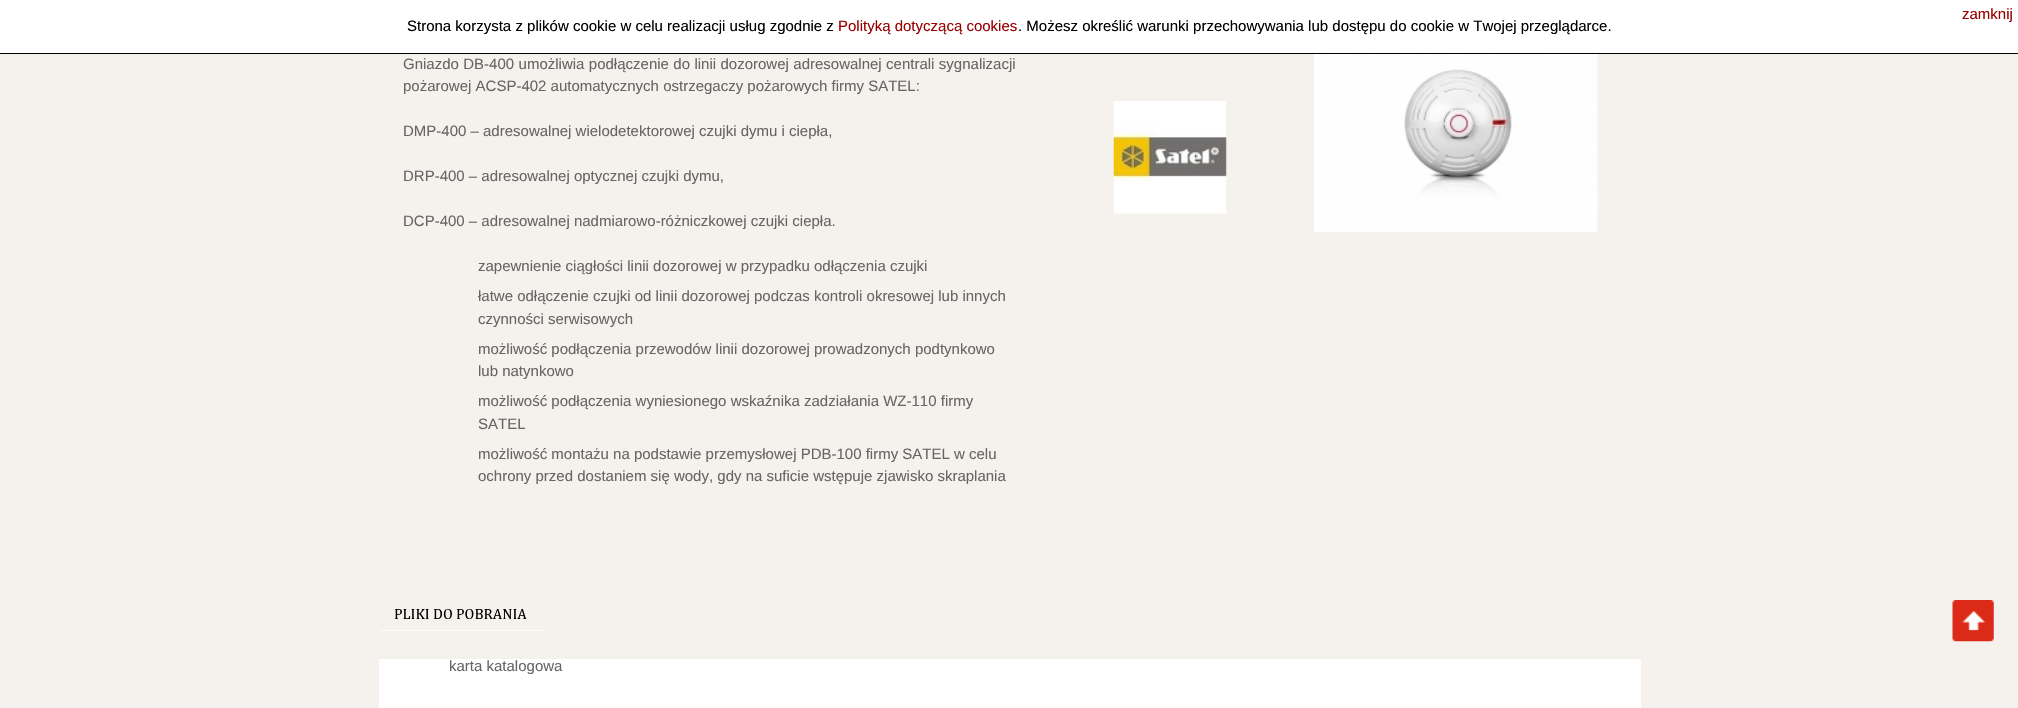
static SkFont makeFont(const char* family, int weight, float size, bool italic = false) {
  SkFontStyle style(weight, SkFontStyle::kNormal_Width,
    italic ? SkFontStyle::kItalic_Slant : SkFontStyle::kUpright_Slant);
  SkFont result(fontMgr->matchFamilyStyle(family, style), size);
  result.setSubpixel(true);
  return result;
}

static void text(SkCanvas* c, const char* s, float x, float y, const SkFont& font, SkColor color) {
  SkPaint ink(SkColor4f::FromColor(color));
  ink.setAntiAlias(true);
  c->drawString(s, x, y, font, ink);
}

static void spacedText(SkCanvas* c, const char* s, float x, float y, const SkFont& font, const SkPaint& ink, float letter, float word) {
  std::vector<SkGlyphID> glyphs(font.countText(s, strlen(s), SkTextEncoding::kUTF8));
  std::vector<float> xs(glyphs.size());
  font.textToGlyphs(s, strlen(s), SkTextEncoding::kUTF8, glyphs);
  font.getXPos(glyphs, xs, x);
  float extra = 0;
  for (size_t i = 0; i < glyphs.size(); i++) {
    xs[i] += extra;
    extra += letter + word * (glyphs[i] == font.unicharToGlyph(' '));
  }
  c->drawTextBlob(SkTextBlob::MakeFromPosHGlyphs(glyphs, xs, y, font), 0, 0, ink);
}

static void box(SkCanvas* c, float l, float t, float r, float b, SkColor color) {
  SkPaint ink(SkColor4f::FromColor(color));
  ink.setAntiAlias(true);
  c->drawRect(SkRect::MakeLTRB(l, t, r, b), ink);
}

static void picture(SkCanvas* c, const char* path, float l, float t, float r, float b) {
  auto image = SkImages::DeferredFromEncodedData(SkData::MakeFromFileName(path));
  c->drawImageRect(image, SkRect::MakeLTRB(l, t, r, b), SkSamplingOptions());
}

void draw(SkCanvas* c) {
  SkPaint paint;
  paint.setAntiAlias(true);
  c->clear(0xfff5f2ed);
  box(c, 0, 0, 2018, 53, 0xffffffff);
  box(c, 0, 53, 2018, 54, 0xff000000);
  SkFont face1 = makeFont("Liberation Sans", 400, 15);
  text(c, "zamknij", 1962, 19, face1, 0xff990000);
  text(c, "Strona korzysta z plików cookie w celu realizacji usług zgodnie z", 407, 31, face1, 0xff000000);
  text(c, "Polityką dotyczącą cookies", 838, 31, face1, 0xff990000);
  text(c, ". Możesz określić warunki przechowywania lub dostępu do cookie w Twojej przeglądarce.", 1018, 31, face1, 0xff000000);
  paint.setColor(0xff666666);
  spacedText(c, "Gniazdo DB-400 umożliwia podłączenie do linii dozorowej adresowalnej centrali sygnalizacji", 403, 69, face1, paint, 0, 0.25f);
  text(c, "pożarowej ACSP-402 automatycznych ostrzegaczy pożarowych firmy SATEL:", 403, 91, face1, 0xff666666);
  text(c, "DMP-400 – adresowalnej wielodetektorowej czujki dymu i ciepła,", 403, 136, face1, 0xff666666);
  text(c, "DRP-400 – adresowalnej optycznej czujki dymu,", 403, 181, face1, 0xff666666);
  text(c, "DCP-400 – adresowalnej nadmiarowo-różniczkowej czujki ciepła.", 403, 226, face1, 0xff666666);
  text(c, "zapewnienie ciągłości linii dozorowej w przypadku odłączenia czujki", 478, 271, face1, 0xff666666);
  text(c, "łatwe odłączenie czujki od linii dozorowej podczas kontroli okresowej lub innych", 478, 301, face1, 0xff666666);
  text(c, "czynności serwisowych", 478, 324, face1, 0xff666666);
  text(c, "możliwość podłączenia przewodów linii dozorowej prowadzonych podtynkowo", 478, 354, face1, 0xff666666);
  text(c, "lub natynkowo", 478, 376, face1, 0xff666666);
  text(c, "możliwość podłączenia wyniesionego wskaźnika zadziałania WZ-110 firmy", 478, 406, face1, 0xff666666);
  text(c, "SATEL", 478, 429, face1, 0xff666666);
  text(c, "możliwość montażu na podstawie przemysłowej PDB-100 firmy SATEL w celu", 478, 459, face1, 0xff666666);
  text(c, "ochrony przed dostaniem się wody, gdy na suficie wstępuje zjawisko skraplania", 478, 481, face1, 0xff666666);
  picture(c, "img_01.png", 1113, 101, 1227, 214);
  picture(c, "img_02.png", 1314, 54, 1598, 232);
  box(c, 379, 630, 544, 631, 0xfffffafa);
  SkFont face2 = makeFont("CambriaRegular", 400, 15);
  text(c, "PLIKI DO POBRANIA", 394, 619, face2, 0xff000000);
  box(c, 379, 659, 1641, 708, 0xffffffff);
  text(c, "karta katalogowa", 449, 671, face1, 0xff666666);
  picture(c, "img_03.png", 1952, 600, 1994, 642);
}
